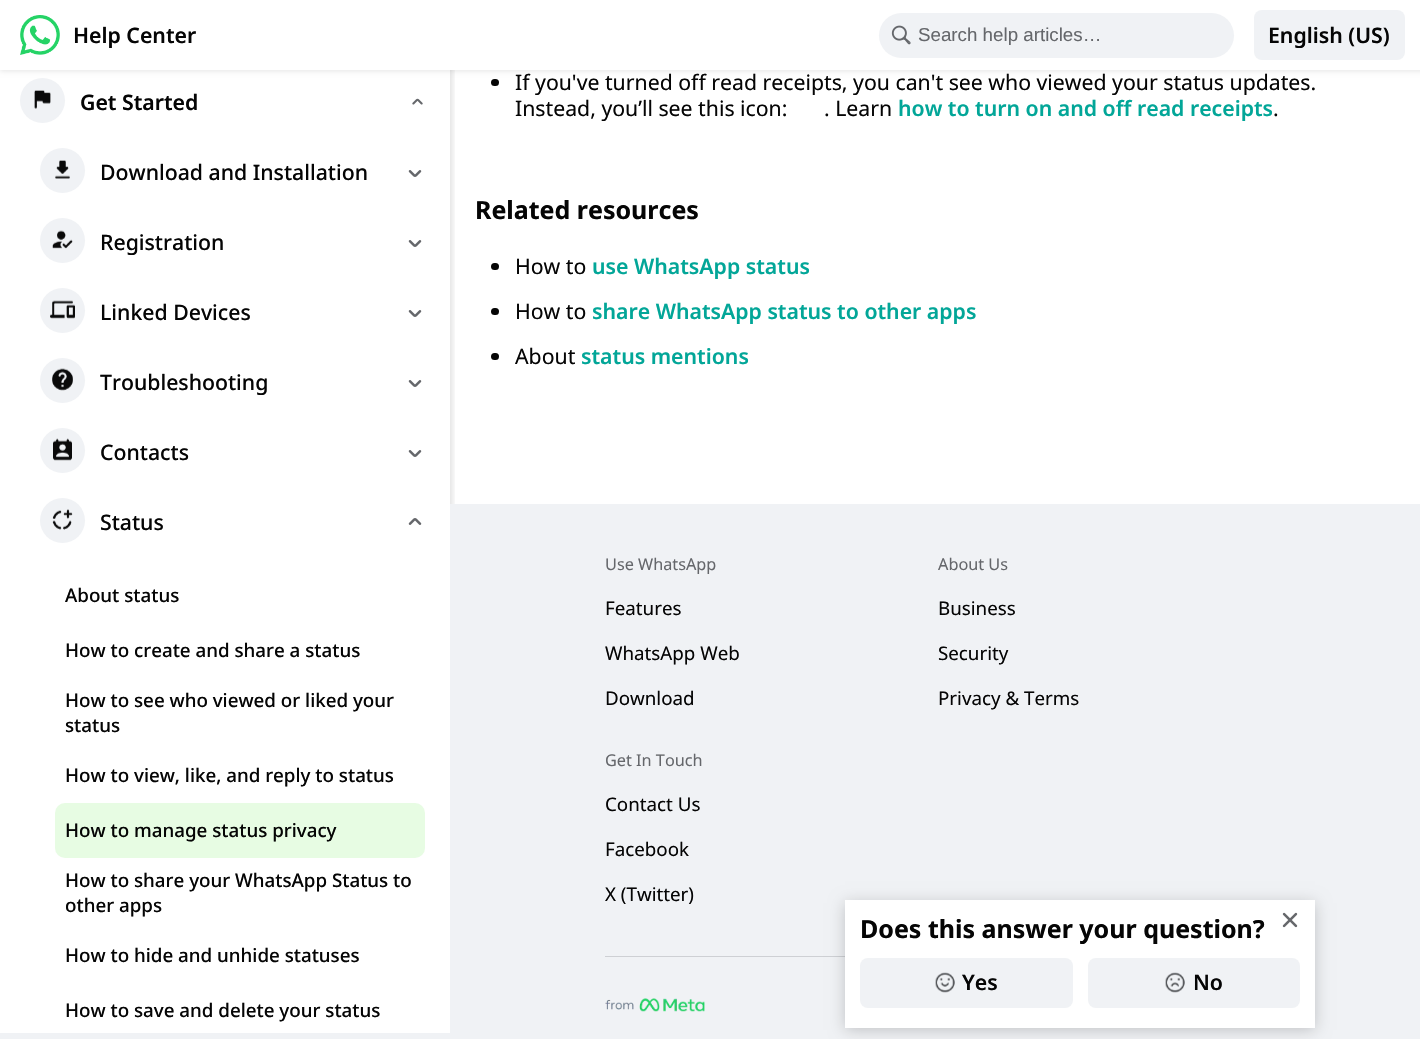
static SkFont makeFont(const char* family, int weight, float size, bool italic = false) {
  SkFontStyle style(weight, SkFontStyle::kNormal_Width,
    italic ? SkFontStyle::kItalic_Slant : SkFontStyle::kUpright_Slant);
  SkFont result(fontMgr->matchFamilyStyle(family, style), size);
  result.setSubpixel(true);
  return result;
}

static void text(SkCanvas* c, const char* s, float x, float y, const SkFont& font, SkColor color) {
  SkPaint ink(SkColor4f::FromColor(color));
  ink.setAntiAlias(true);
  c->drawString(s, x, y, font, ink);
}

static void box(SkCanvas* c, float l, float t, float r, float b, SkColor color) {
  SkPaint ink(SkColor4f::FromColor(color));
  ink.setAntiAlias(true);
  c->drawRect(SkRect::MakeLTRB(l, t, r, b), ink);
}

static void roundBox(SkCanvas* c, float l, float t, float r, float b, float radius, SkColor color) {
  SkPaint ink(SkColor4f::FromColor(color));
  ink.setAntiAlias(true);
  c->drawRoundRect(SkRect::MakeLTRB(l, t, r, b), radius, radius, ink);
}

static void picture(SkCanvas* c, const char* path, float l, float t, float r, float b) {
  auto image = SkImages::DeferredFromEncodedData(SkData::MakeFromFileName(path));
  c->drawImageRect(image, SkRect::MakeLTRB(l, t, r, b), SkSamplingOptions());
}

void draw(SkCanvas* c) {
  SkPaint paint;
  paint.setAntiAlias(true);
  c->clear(0xfff0f2f5);
  box(c, 450, 70, 1420, 504, 0xffffffff);
  box(c, 0, 70, 450, 1033, 0xffffffff);
  c->save();
  c->clipRect(SkRect::MakeLTRB(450, 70, 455, 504));
  paint.setColor(0x1a000000);
  paint.setMaskFilter(SkMaskFilter::MakeBlur(kNormal_SkBlurStyle, 2.5f));
  c->drawRect(SkRect::MakeLTRB(8, -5, 453, 1030), paint);
  paint.setMaskFilter(nullptr);
  c->restore();
  paint.setColor(0xfff0f2f5);
  c->drawCircle(42.5f, 100.5f, 22.5f, paint);
  roundBox(c, 491, 79, 499, 86, 3.5f, 0xff050505);
  paint.setColor(0x1a000000);
  paint.setMaskFilter(SkMaskFilter::MakeBlur(kNormal_SkBlurStyle, 2.5f));
  c->drawRect(SkRect::MakeLTRB(0, 1, 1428, 71), paint);
  paint.setMaskFilter(nullptr);
  box(c, 0, 0, 1420, 70, 0xffffffff);
  picture(c, "img_01.png", 20, 15, 60, 55);
  SkFont face1 = makeFont("Noto Sans", 600, 21.25f);
  text(c, "Help Center", 73, 43, face1, 0xff050505);
  roundBox(c, 879, 13, 1234, 58, 22.5f, 0xfff0f2f5);
  picture(c, "img_02.png", 891, 25, 911, 45);
  SkFont face2 = makeFont("Liberation Sans", 400, 18.75f);
  text(c, "Search help articles…", 918, 41, face2, 0xff65676b);
  roundBox(c, 1254, 10, 1405, 60, 8, 0xfff0f2f5);
  text(c, "English (US)", 1268, 43, face1, 0xff050505);
  picture(c, "img_03.png", 34, 90, 51, 109);
  text(c, "Get Started", 80, 110, face1, 0xff050505);
  picture(c, "img_04.png", 412, 98, 423, 105);
  paint.setColor(0xfff0f2f5);
  c->drawCircle(62.5f, 170.5f, 22.5f, paint);
  picture(c, "img_05.png", 55, 160, 70, 179);
  SkFont face3 = makeFont("Noto Sans", 500, 21.25f);
  text(c, "Download and Installation", 100, 180, face3, 0xff050505);
  picture(c, "img_06.png", 408, 170, 422, 177);
  c->drawCircle(62.5f, 240.5f, 22.5f, paint);
  picture(c, "img_07.png", 52, 230, 73, 249);
  text(c, "Registration", 100, 250, face3, 0xff050505);
  picture(c, "img_06.png", 408, 240, 422, 247);
  c->drawCircle(62.5f, 310.5f, 22.5f, paint);
  picture(c, "img_08.png", 50, 300, 75, 319);
  text(c, "Linked Devices", 100, 320, face3, 0xff050505);
  picture(c, "img_06.png", 408, 310, 422, 317);
  c->drawCircle(62.5f, 380.5f, 22.5f, paint);
  picture(c, "img_09.png", 52, 368, 73, 391);
  text(c, "Troubleshooting", 100, 390, face3, 0xff050505);
  picture(c, "img_06.png", 408, 380, 422, 387);
  c->drawCircle(62.5f, 450.5f, 22.5f, paint);
  picture(c, "img_10.png", 53, 438, 72, 461);
  text(c, "Contacts", 100, 460, face3, 0xff050505);
  picture(c, "img_06.png", 408, 450, 422, 457);
  c->drawCircle(62.5f, 520.5f, 22.5f, paint);
  picture(c, "img_11.png", 52, 509, 73, 530);
  text(c, "Status", 100, 530, face3, 0xff050505);
  picture(c, "img_12.png", 408, 518, 422, 525);
  SkFont face4 = makeFont("Noto Sans", 500, 18.75f);
  text(c, "About status", 65, 602, face4, 0xff050505);
  text(c, "How to create and share a status", 65, 657, face4, 0xff050505);
  text(c, "How to see who viewed or liked your", 65, 707, face4, 0xff050505);
  text(c, "status", 65, 732, face4, 0xff050505);
  text(c, "How to view, like, and reply to status", 65, 782, face4, 0xff050505);
  roundBox(c, 55, 803, 425, 858, 10, 0xffe7fce3);
  text(c, "How to manage status privacy", 65, 837, face4, 0xff050505);
  text(c, "How to share your WhatsApp Status to", 65, 887, face4, 0xff050505);
  text(c, "other apps", 65, 912, face4, 0xff050505);
  text(c, "How to hide and unhide statuses", 65, 962, face4, 0xff050505);
  text(c, "How to save and delete your status", 65, 1017, face4, 0xff050505);
  SkFont face5 = makeFont("Noto Sans", 400, 21.25f);
  text(c, "If you've turned off read receipts, you can't see who viewed your status updates.", 515, 90, face5, 0xff050505);
  text(c, "Instead, you’ll see this icon:", 515, 116, face5, 0xff050505);
  text(c, ". Learn", 824, 116, face5, 0xff050505);
  text(c, "how to turn on and off read receipts", 898, 116, face1, 0xff02a698);
  text(c, ".", 1273, 116, face5, 0xff050505);
  SkFont face6 = makeFont("Noto Sans", 700, 25);
  text(c, "Related resources", 475, 219, face6, 0xff050505);
  roundBox(c, 491, 263, 499, 270, 3.5f, 0xff050505);
  text(c, "How to", 515, 274, face5, 0xff050505);
  text(c, "use WhatsApp status", 592, 274, face1, 0xff02a698);
  roundBox(c, 491, 308, 499, 315, 3.5f, 0xff050505);
  text(c, "How to", 515, 319, face5, 0xff050505);
  text(c, "share WhatsApp status to other apps", 592, 319, face1, 0xff02a698);
  roundBox(c, 491, 353, 499, 360, 3.5f, 0xff050505);
  text(c, "About", 515, 364, face5, 0xff050505);
  text(c, "status mentions", 581, 364, face1, 0xff02a698);
  box(c, 450, 504, 456, 1033, 0xfff0f2f5);
  SkFont face7 = makeFont("Noto Sans", 400, 16.25f);
  text(c, "Use WhatsApp", 605, 570, face7, 0xff65676b);
  SkFont face8 = makeFont("Noto Sans", 400, 18.75f);
  text(c, "Features", 605, 615, face8, 0xff050505);
  text(c, "WhatsApp Web", 605, 660, face8, 0xff050505);
  text(c, "Download", 605, 705, face8, 0xff050505);
  text(c, "About Us", 938, 570, face7, 0xff65676b);
  text(c, "Business", 938, 615, face8, 0xff050505);
  text(c, "Security", 938, 660, face8, 0xff050505);
  text(c, "Privacy & Terms", 938, 705, face8, 0xff050505);
  text(c, "Get In Touch", 605, 766, face7, 0xff65676b);
  text(c, "Contact Us", 605, 811, face8, 0xff050505);
  text(c, "Facebook", 605, 856, face8, 0xff050505);
  text(c, "X (Twitter)", 605, 901, face8, 0xff050505);
  box(c, 605, 956, 845, 957, 0xffced0d4);
  picture(c, "img_13.png", 605, 998, 705, 1012);
  paint.setColor(0x33000000);
  paint.setMaskFilter(SkMaskFilter::MakeBlur(kNormal_SkBlurStyle, 7.5f));
  c->drawRect(SkRect::MakeLTRB(845, 903, 1315, 1030), paint);
  paint.setMaskFilter(nullptr);
  box(c, 845, 900, 1315, 1028, 0xffffffff);
  text(c, "Does this answer your question?", 860, 938, face6, 0xff050505);
  picture(c, "img_14.png", 1282, 912, 1298, 928);
  roundBox(c, 860, 958, 1073, 1008, 8, 0xfff0f2f5);
  picture(c, "img_15.png", 935, 972, 955, 993);
  text(c, "Yes", 962, 990, face1, 0xff050505);
  roundBox(c, 1088, 958, 1300, 1008, 8, 0xfff0f2f5);
  picture(c, "img_16.png", 1165, 972, 1185, 993);
  text(c, "No", 1193, 990, face1, 0xff050505);
}
